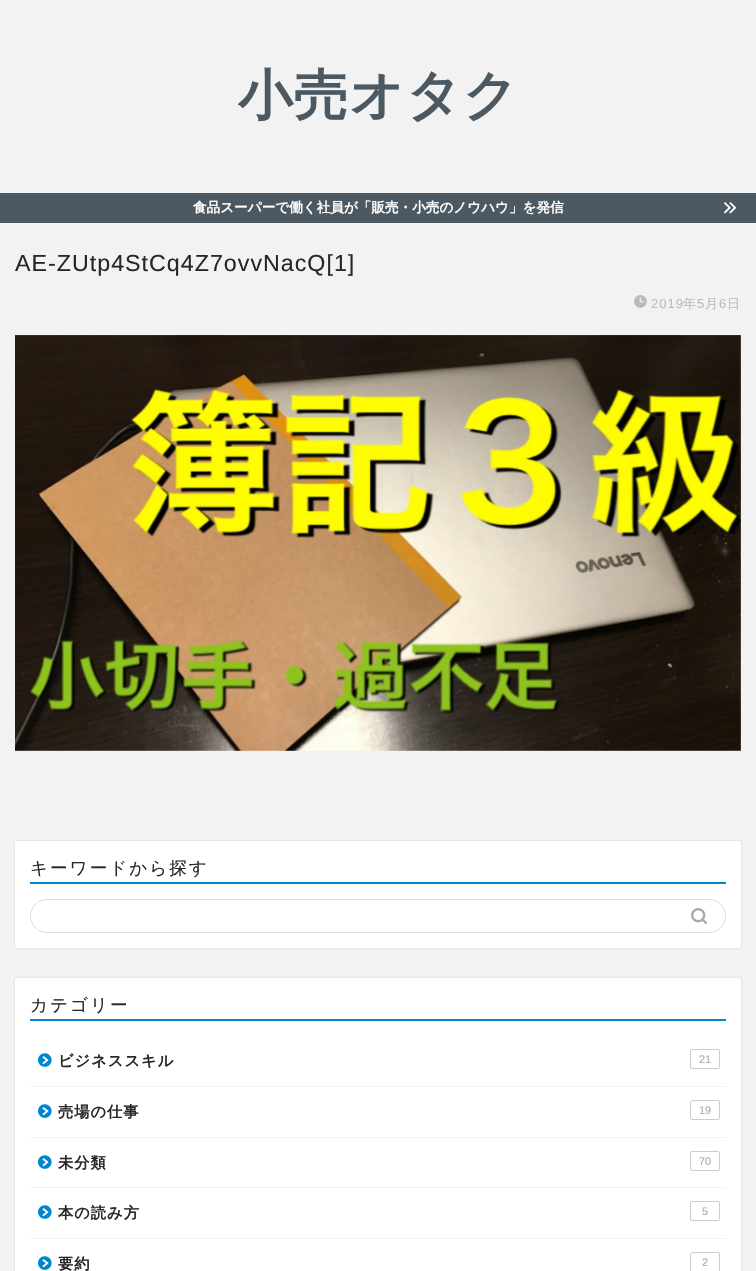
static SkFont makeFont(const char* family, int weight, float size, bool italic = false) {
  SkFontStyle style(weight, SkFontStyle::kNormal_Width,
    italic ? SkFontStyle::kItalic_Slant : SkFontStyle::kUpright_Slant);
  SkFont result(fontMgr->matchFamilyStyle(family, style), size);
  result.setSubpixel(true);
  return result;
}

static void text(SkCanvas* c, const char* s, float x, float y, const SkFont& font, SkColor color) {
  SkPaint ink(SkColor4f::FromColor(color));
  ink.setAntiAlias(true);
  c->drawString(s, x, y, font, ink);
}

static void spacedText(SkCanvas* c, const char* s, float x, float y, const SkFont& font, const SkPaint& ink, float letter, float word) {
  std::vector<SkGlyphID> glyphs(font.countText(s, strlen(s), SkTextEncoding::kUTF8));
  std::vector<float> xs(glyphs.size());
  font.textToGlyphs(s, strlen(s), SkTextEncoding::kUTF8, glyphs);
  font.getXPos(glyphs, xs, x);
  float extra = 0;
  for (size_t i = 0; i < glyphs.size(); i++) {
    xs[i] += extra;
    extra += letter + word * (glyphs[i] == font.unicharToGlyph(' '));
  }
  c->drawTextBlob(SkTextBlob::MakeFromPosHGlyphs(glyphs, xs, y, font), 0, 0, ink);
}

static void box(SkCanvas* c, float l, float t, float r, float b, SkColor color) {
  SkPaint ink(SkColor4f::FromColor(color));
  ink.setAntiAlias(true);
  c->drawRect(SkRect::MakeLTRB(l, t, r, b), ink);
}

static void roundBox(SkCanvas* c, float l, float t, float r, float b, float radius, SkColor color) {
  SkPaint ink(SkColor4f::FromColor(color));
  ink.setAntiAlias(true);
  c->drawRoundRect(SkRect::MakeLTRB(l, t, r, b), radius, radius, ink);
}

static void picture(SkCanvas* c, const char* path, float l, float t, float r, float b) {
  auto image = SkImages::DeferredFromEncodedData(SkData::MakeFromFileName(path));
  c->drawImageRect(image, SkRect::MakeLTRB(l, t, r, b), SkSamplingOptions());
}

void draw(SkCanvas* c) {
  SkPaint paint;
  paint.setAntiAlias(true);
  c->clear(0xfff2f2f2);
  SkFont face1 = makeFont("WenQuanYi Zen Hei", 700, 54.5f);
  paint.setColor(0xff4c5962);
  spacedText(c, "小売オタク", 238, 114, face1, paint, 1, 0);
  box(c, 0, 193, 756, 223, 0xff4c5962);
  SkFont face2 = makeFont("WenQuanYi Zen Hei", 700, 13.6f);
  text(c, "食品スーパーで働く社員が「販売・小売のノウハウ」を発信", 193, 212, face2, 0xffffffff);
  picture(c, "img_01.png", 724, 202, 736, 214);
  SkFont face3 = makeFont("Liberation Sans", 400, 23.25f);
  paint.setColor(0xff2b2625);
  spacedText(c, "AE-ZUtp4StCq4Z7ovvNacQ[1]", 15, 271, face3, paint, 1, 0);
  picture(c, "img_02.png", 634, 295, 647, 308);
  SkFont face4 = makeFont("Liberation Sans", 400, 13);
  paint.setColor(0xffbbbbbb);
  spacedText(c, "2019", 651, 308, face4, paint, 1, 0);
  SkFont face5 = makeFont("WenQuanYi Zen Hei", 500, 13);
  spacedText(c, "年", 683, 308, face5, paint, 1, 0);
  spacedText(c, "5", 697, 308, face4, paint, 1, 0);
  spacedText(c, "月", 705, 308, face5, paint, 1, 0);
  spacedText(c, "6", 719, 308, face4, paint, 1, 0);
  spacedText(c, "日", 727, 308, face5, paint, 1, 0);
  picture(c, "img_03.png", 15, 335, 741, 751);
  paint.setColor(0x2e000000);
  paint.setMaskFilter(SkMaskFilter::MakeBlur(kNormal_SkBlurStyle, 1));
  c->drawRoundRect(SkRect::MakeLTRB(15, 841, 741, 948), 2, 2, paint);
  paint.setMaskFilter(nullptr);
  roundBox(c, 15, 841, 741, 948, 2, 0xffffffff);
  box(c, 30, 882, 726, 884, 0xff0085cf);
  SkFont face6 = makeFont("WenQuanYi Zen Hei", 500, 17.6f);
  paint.setColor(0xff2b2625);
  spacedText(c, "キーワードから探す", 30, 874, face6, paint, 2, 0);
  paint.setStyle(SkPaint::kStroke_Style);
  paint.setStrokeWidth(1);
  paint.setColor(0xffdddddd);
  c->drawRoundRect(SkRect::MakeLTRB(30.5f, 899.5f, 725.5f, 932.5f), 16.5f, 16.5f, paint);
  picture(c, "img_04.png", 691, 908, 707, 924);
  paint.setStyle(SkPaint::kFill_Style);
  paint.setColor(0x2e000000);
  paint.setMaskFilter(SkMaskFilter::MakeBlur(kNormal_SkBlurStyle, 1));
  c->drawRoundRect(SkRect::MakeLTRB(15, 978, 741, 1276), 2, 2, paint);
  paint.setMaskFilter(nullptr);
  roundBox(c, 15, 978, 741, 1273, 2, 0xffffffff);
  box(c, 30, 1019, 726, 1021, 0xff0085cf);
  paint.setColor(0xff2b2625);
  spacedText(c, "カテゴリー", 30, 1011, face6, paint, 2, 0);
  box(c, 30, 1086, 726, 1087, 0xfff2f2f2);
  picture(c, "img_05.png", 38, 1053, 52, 1067);
  SkFont face7 = makeFont("WenQuanYi Zen Hei", 700, 15.25f);
  spacedText(c, "ビジネススキル", 58, 1066, face7, paint, 1, 0);
  paint.setStyle(SkPaint::kStroke_Style);
  paint.setColor(0xffcccccc);
  c->drawRoundRect(SkRect::MakeLTRB(690.5f, 1049.5f, 719.5f, 1068.5f), 1.5f, 1.5f, paint);
  SkFont face8 = makeFont("Liberation Sans", 400, 11);
  text(c, "21", 699, 1063, face8, 0xffaaaaaa);
  box(c, 30, 1137, 726, 1138, 0xfff2f2f2);
  picture(c, "img_05.png", 38, 1104, 52, 1118);
  paint.setStyle(SkPaint::kFill_Style);
  paint.setColor(0xff2b2625);
  spacedText(c, "売場の仕事", 58, 1117, face7, paint, 1, 0);
  paint.setStyle(SkPaint::kStroke_Style);
  paint.setColor(0xffcccccc);
  c->drawRoundRect(SkRect::MakeLTRB(690.5f, 1100.5f, 719.5f, 1119.5f), 1.5f, 1.5f, paint);
  text(c, "19", 699, 1114, face8, 0xffaaaaaa);
  box(c, 30, 1187, 726, 1188, 0xfff2f2f2);
  picture(c, "img_05.png", 38, 1155, 52, 1169);
  paint.setStyle(SkPaint::kFill_Style);
  paint.setColor(0xff2b2625);
  spacedText(c, "未分類", 58, 1168, face7, paint, 1, 0);
  paint.setStyle(SkPaint::kStroke_Style);
  paint.setColor(0xffcccccc);
  c->drawRoundRect(SkRect::MakeLTRB(690.5f, 1151.5f, 719.5f, 1170.5f), 1.5f, 1.5f, paint);
  text(c, "70", 699, 1165, face8, 0xffaaaaaa);
  box(c, 30, 1238, 726, 1239, 0xfff2f2f2);
  picture(c, "img_05.png", 38, 1205, 52, 1219);
  paint.setStyle(SkPaint::kFill_Style);
  paint.setColor(0xff2b2625);
  spacedText(c, "本の読み方", 58, 1218, face7, paint, 1, 0);
  paint.setStyle(SkPaint::kStroke_Style);
  paint.setColor(0xffcccccc);
  c->drawRoundRect(SkRect::MakeLTRB(690.5f, 1201.5f, 719.5f, 1220.5f), 1.5f, 1.5f, paint);
  text(c, "5", 702, 1215, face8, 0xffaaaaaa);
  picture(c, "img_05.png", 38, 1256, 52, 1270);
  paint.setStyle(SkPaint::kFill_Style);
  paint.setColor(0xff2b2625);
  spacedText(c, "要約", 58, 1269, face7, paint, 1, 0);
  paint.setStyle(SkPaint::kStroke_Style);
  paint.setColor(0xffcccccc);
  c->drawRoundRect(SkRect::MakeLTRB(690.5f, 1252.5f, 719.5f, 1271.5f), 1.5f, 1.5f, paint);
  text(c, "2", 702, 1266, face8, 0xffaaaaaa);
}
